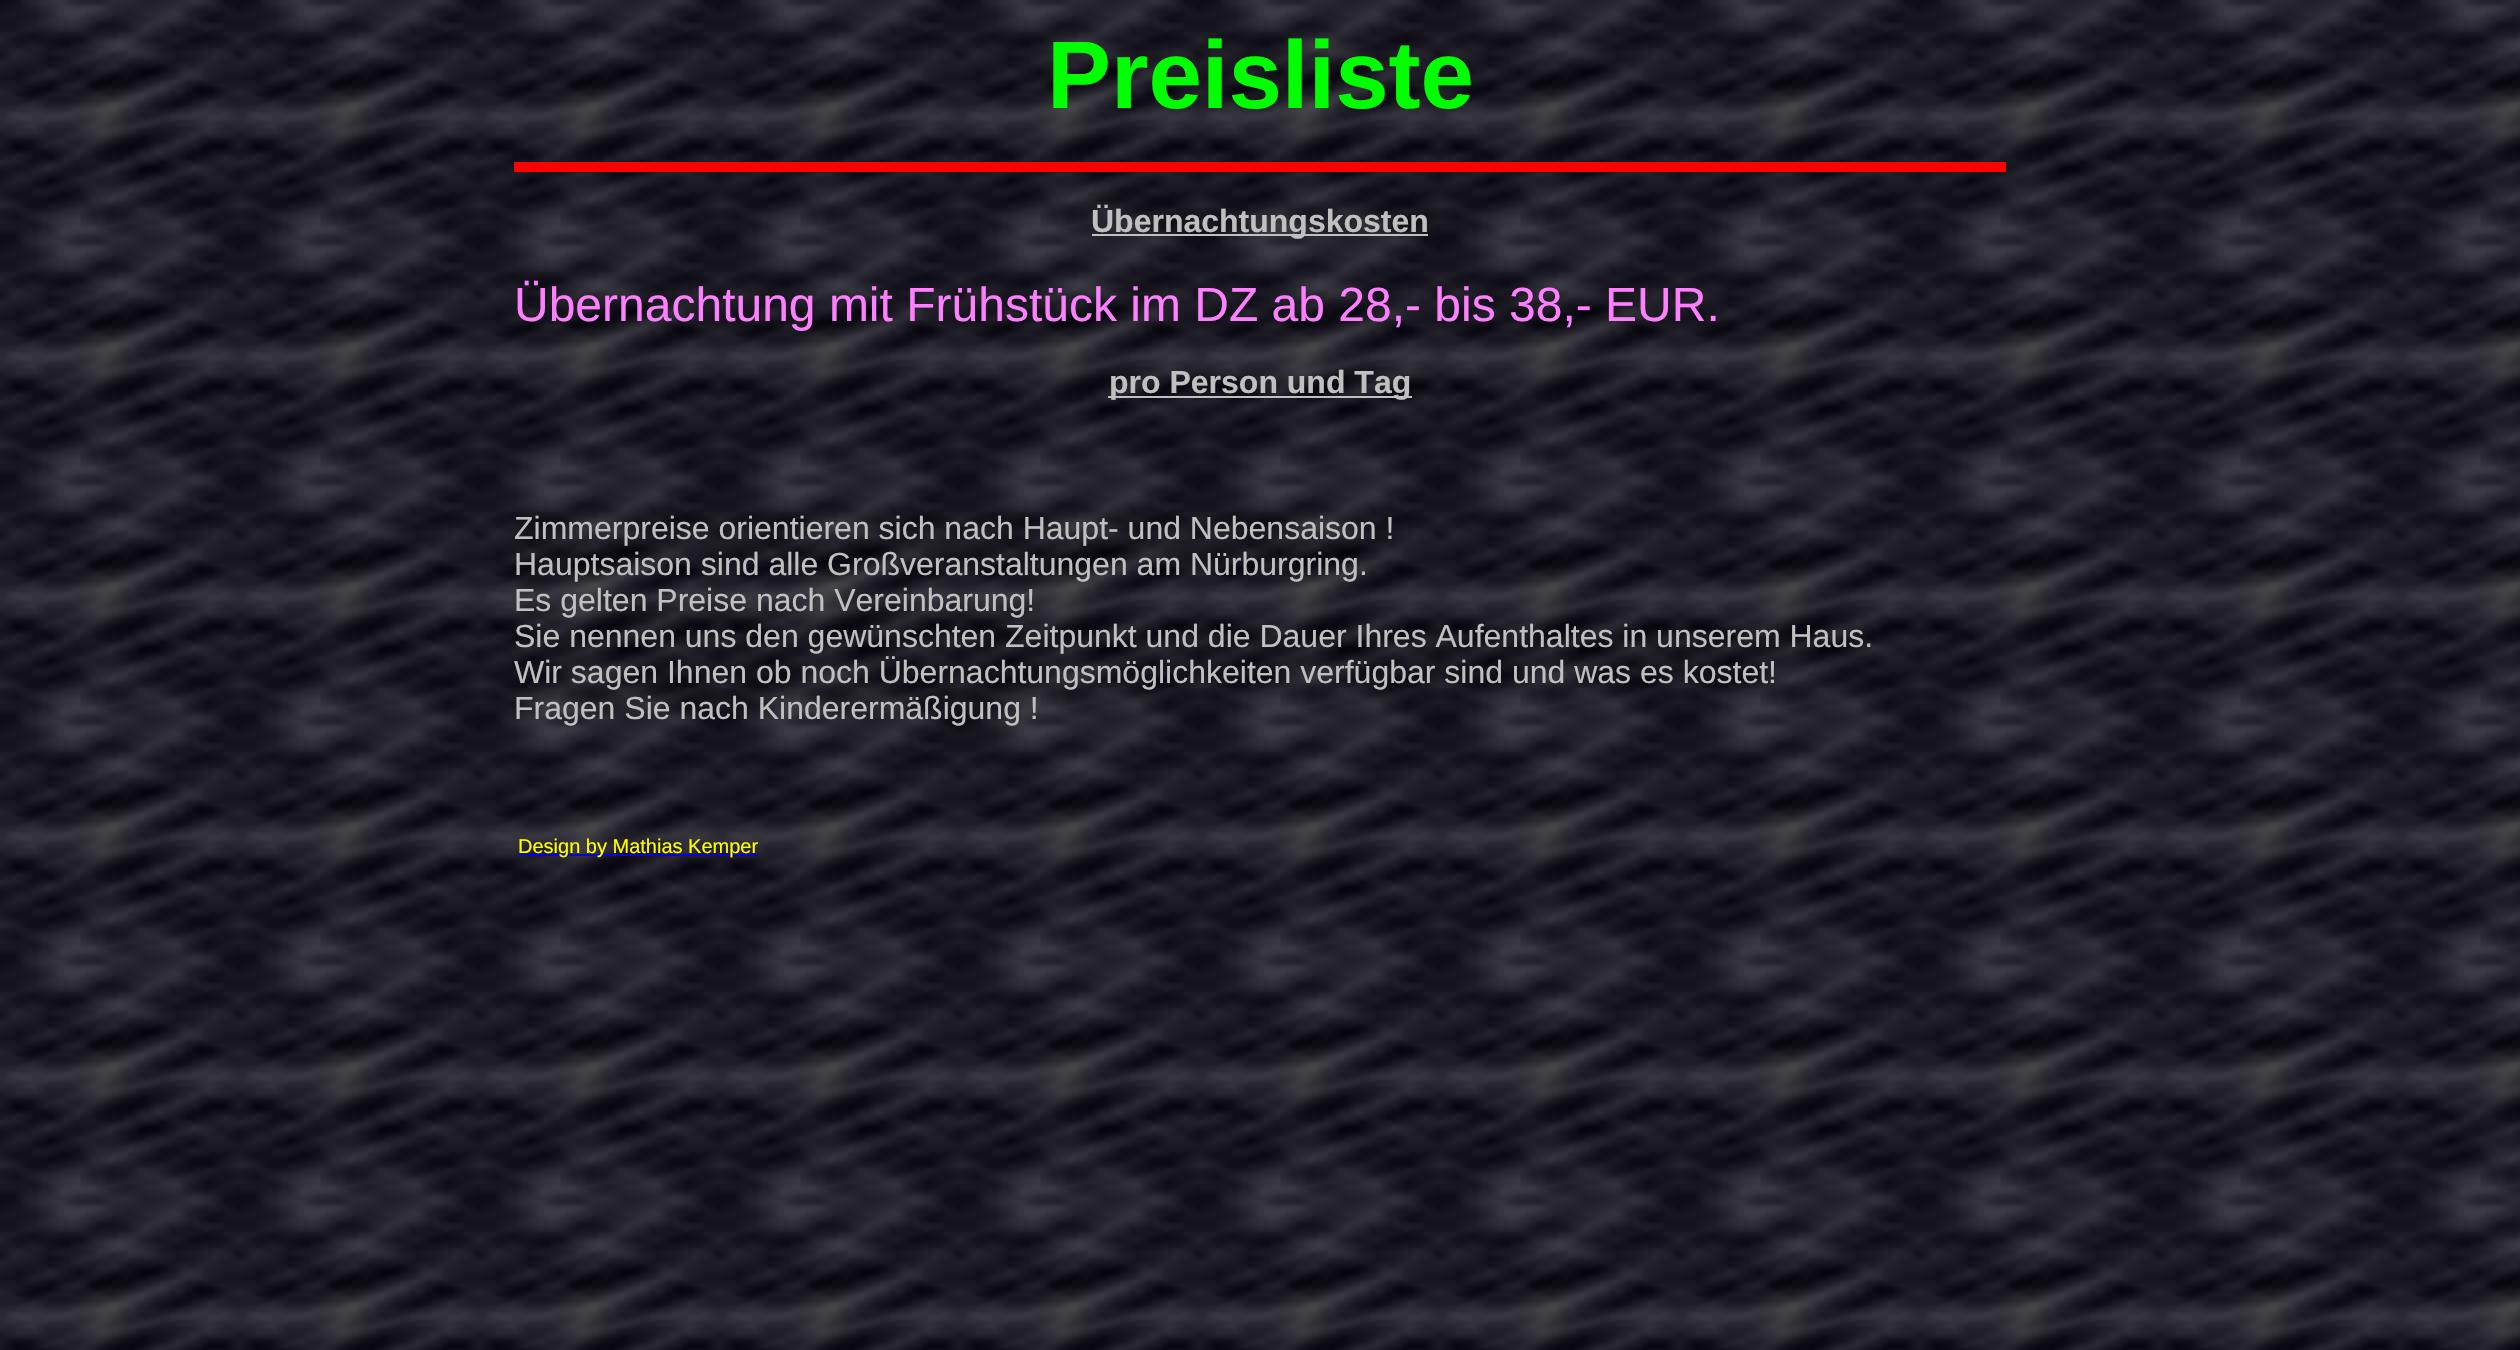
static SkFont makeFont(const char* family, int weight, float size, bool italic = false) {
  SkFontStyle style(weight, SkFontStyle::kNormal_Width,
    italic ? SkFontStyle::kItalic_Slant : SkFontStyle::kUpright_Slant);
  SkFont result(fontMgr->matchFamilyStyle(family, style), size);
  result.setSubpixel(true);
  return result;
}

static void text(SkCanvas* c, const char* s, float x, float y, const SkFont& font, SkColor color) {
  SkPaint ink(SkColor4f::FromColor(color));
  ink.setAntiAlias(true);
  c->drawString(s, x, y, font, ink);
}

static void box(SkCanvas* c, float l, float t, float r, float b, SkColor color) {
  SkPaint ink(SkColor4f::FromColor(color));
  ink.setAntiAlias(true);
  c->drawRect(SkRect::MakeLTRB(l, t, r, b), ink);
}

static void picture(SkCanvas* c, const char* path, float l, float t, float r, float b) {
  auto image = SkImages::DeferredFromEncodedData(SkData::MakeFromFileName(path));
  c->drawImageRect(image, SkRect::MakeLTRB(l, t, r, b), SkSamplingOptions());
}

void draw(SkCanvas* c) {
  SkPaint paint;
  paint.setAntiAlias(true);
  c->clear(0xffffffff);
  picture(c, "img_01.png", 0, 0, 2520, 1350);
  SkFont face1 = makeFont("Liberation Sans", 700, 96);
  text(c, "Preisliste", 1047, 108, face1, 0xff00ff00);
  box(c, 514, 162, 2006, 172, 0xffff0000);
  box(c, 1092, 234, 1428, 236, 0xffc0c0c0);
  SkFont face2 = makeFont("Liberation Sans", 700, 32);
  text(c, "Übernachtungskosten", 1091, 232, face2, 0xffc0c0c0);
  SkFont face3 = makeFont("Liberation Sans", 400, 48);
  text(c, "Übernachtung mit Frühstück im DZ ab 28,- bis 38,- EUR.", 514, 321, face3, 0xffff80ff);
  box(c, 1108, 396, 1412, 398, 0xffc0c0c0);
  text(c, "pro Person und Tag", 1109, 393, face2, 0xffc0c0c0);
  SkFont face4 = makeFont("Liberation Sans", 400, 32);
  text(c, "Zimmerpreise orientieren sich nach Haupt- und Nebensaison !", 514, 539, face4, 0xffc0c0c0);
  text(c, "Hauptsaison sind alle Großveranstaltungen am Nürburgring.", 514, 575, face4, 0xffc0c0c0);
  text(c, "Es gelten Preise nach Vereinbarung!", 514, 611, face4, 0xffc0c0c0);
  text(c, "Sie nennen uns den gewünschten Zeitpunkt und die Dauer Ihres Aufenthaltes in unserem Haus.", 514, 647, face4, 0xffc0c0c0);
  text(c, "Wir sagen Ihnen ob noch Übernachtungsmöglichkeiten verfügbar sind und was es kostet!", 514, 683, face4, 0xffc0c0c0);
  text(c, "Fragen Sie nach Kinderermäßigung !", 514, 719, face4, 0xffc0c0c0);
  box(c, 518, 854, 758, 856, 0xff0000ee);
  SkFont face5 = makeFont("Liberation Sans", 400, 20);
  text(c, "Design by Mathias Kemper", 518, 853, face5, 0xffffff00);
}
